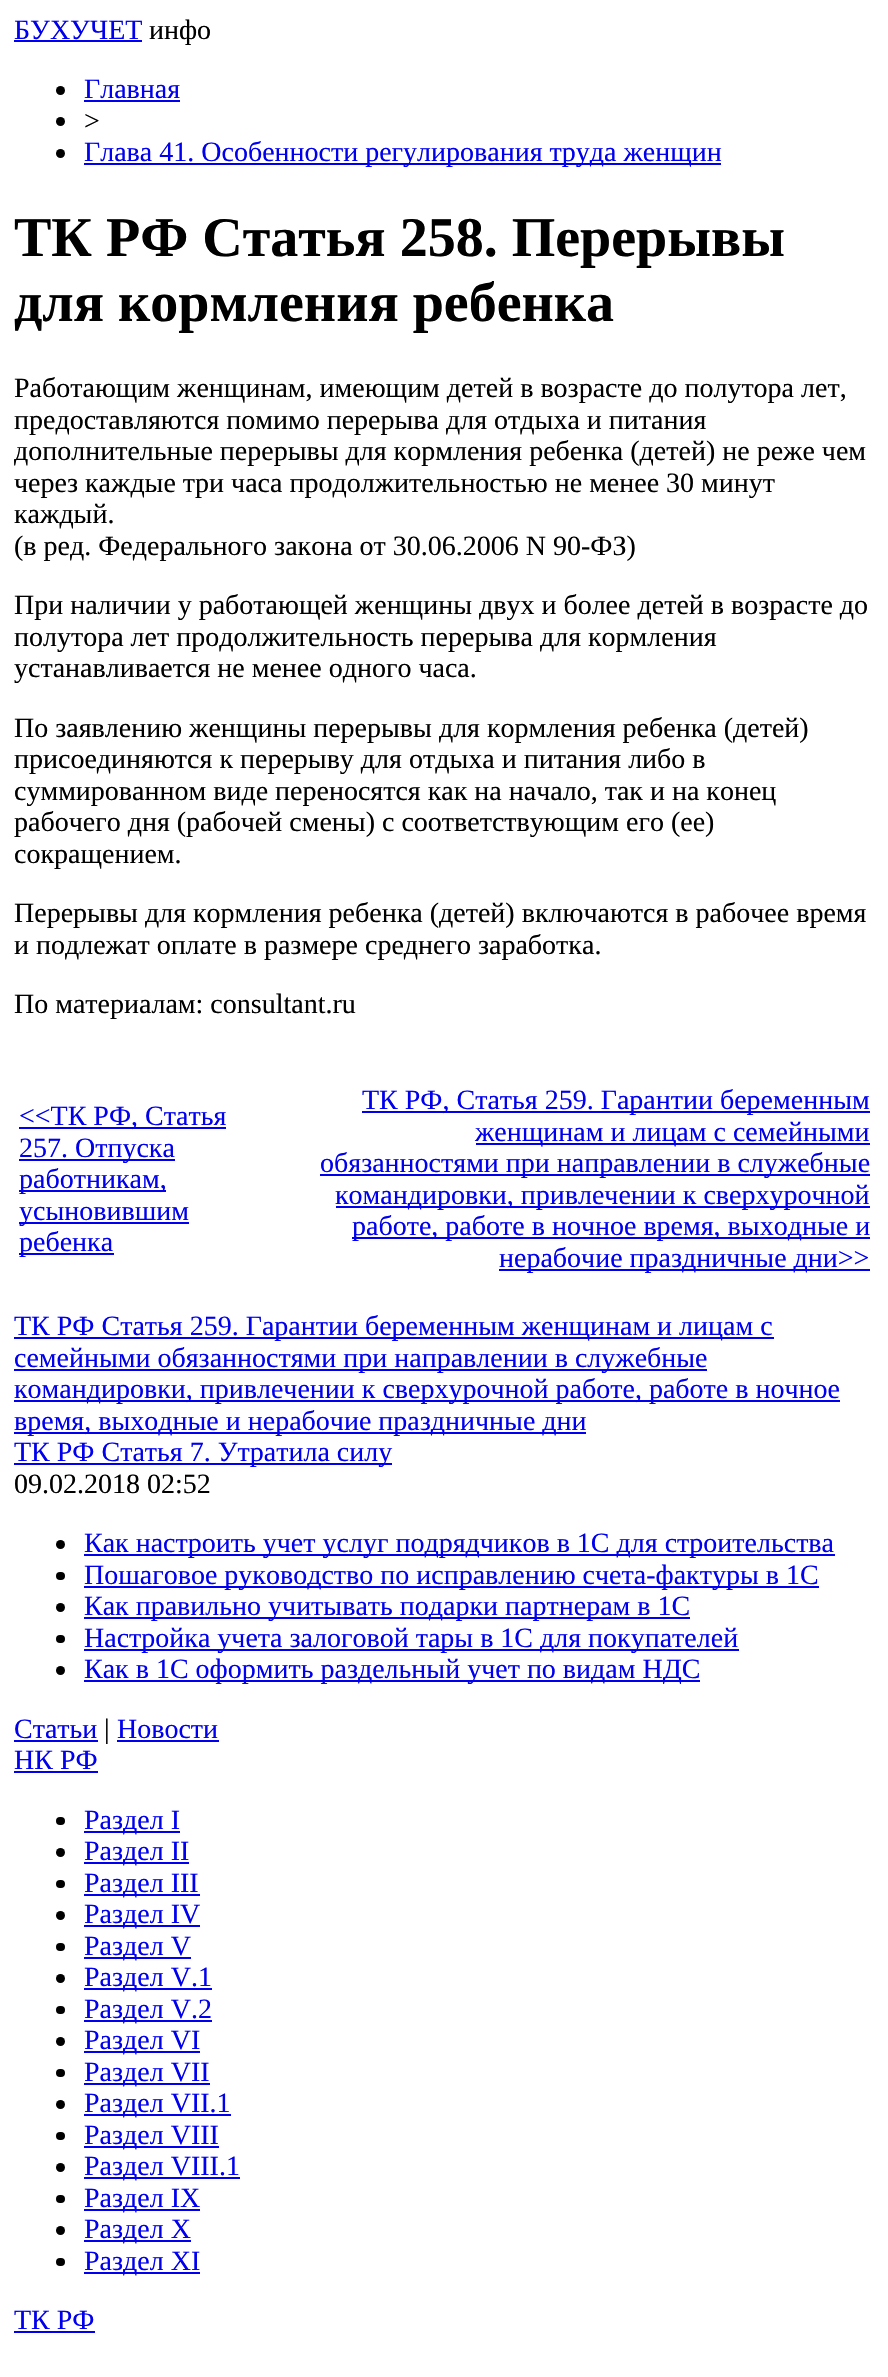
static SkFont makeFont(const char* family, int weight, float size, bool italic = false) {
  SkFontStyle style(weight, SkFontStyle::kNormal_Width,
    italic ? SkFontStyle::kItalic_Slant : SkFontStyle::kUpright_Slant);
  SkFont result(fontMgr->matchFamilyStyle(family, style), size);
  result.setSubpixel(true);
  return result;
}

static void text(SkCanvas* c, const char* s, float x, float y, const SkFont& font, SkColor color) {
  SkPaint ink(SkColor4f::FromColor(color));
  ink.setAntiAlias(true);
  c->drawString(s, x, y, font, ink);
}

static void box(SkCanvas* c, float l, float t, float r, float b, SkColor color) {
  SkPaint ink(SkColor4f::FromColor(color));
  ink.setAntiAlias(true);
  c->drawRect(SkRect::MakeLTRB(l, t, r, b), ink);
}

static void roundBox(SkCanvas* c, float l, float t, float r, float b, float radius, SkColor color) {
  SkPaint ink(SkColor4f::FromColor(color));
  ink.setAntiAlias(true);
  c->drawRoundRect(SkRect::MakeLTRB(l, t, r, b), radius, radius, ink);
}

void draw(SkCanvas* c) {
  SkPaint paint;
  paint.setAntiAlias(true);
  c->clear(0xffffffff);
  SkFont face1 = makeFont("Liberation Serif", 400, 28);
  text(c, "БУХУЧЕТ", 14, 39, face1, 0xff0000ee);
  box(c, 14, 40, 142, 42, 0xff0000ee);
  text(c, "инфо", 149, 39, face1, 0xff000000);
  paint.setColor(0xff000000);
  c->drawCircle(60.5f, 90.5f, 4.5f, paint);
  text(c, "Главная", 84, 98, face1, 0xff0000ee);
  box(c, 84, 100, 180, 102, 0xff0000ee);
  c->drawCircle(60.5f, 121.5f, 4.5f, paint);
  text(c, ">", 84, 130, face1, 0xff000000);
  c->drawCircle(60.5f, 153.5f, 4.5f, paint);
  box(c, 84, 163, 721, 165, 0xff0000ee);
  text(c, "Глава 41. Особенности регулирования труда женщин", 84, 161, face1, 0xff0000ee);
  SkFont face2 = makeFont("Liberation Serif", 700, 56);
  text(c, "ТК РФ Статья 258. Перерывы", 14, 256, face2, 0xff000000);
  text(c, "для кормления ребенка", 14, 321, face2, 0xff000000);
  text(c, "Работающим женщинам, имеющим детей в возрасте до полутора лет,", 14, 397, face1, 0xff000000);
  text(c, "предоставляются помимо перерыва для отдыха и питания", 14, 429, face1, 0xff000000);
  text(c, "дополнительные перерывы для кормления ребенка (детей) не реже чем", 14, 460, face1, 0xff000000);
  text(c, "через каждые три часа продолжительностью не менее 30 минут", 14, 492, face1, 0xff000000);
  text(c, "каждый.", 14, 523, face1, 0xff000000);
  text(c, "(в ред. Федерального закона от 30.06.2006 N 90-ФЗ)", 14, 555, face1, 0xff000000);
  text(c, "При наличии у работающей женщины двух и более детей в возрасте до", 14, 614, face1, 0xff000000);
  text(c, "полутора лет продолжительность перерыва для кормления", 14, 646, face1, 0xff000000);
  text(c, "устанавливается не менее одного часа.", 14, 677, face1, 0xff000000);
  text(c, "По заявлению женщины перерывы для кормления ребенка (детей)", 14, 737, face1, 0xff000000);
  text(c, "присоединяются к перерыву для отдыха и питания либо в", 14, 768, face1, 0xff000000);
  text(c, "суммированном виде переносятся как на начало, так и на конец", 14, 800, face1, 0xff000000);
  text(c, "рабочего дня (рабочей смены) с соответствующим его (ее)", 14, 831, face1, 0xff000000);
  text(c, "сокращением.", 14, 863, face1, 0xff000000);
  text(c, "Перерывы для кормления ребенка (детей) включаются в рабочее время", 14, 922, face1, 0xff000000);
  text(c, "и подлежат оплате в размере среднего заработка.", 14, 954, face1, 0xff000000);
  text(c, "По материалам: consultant.ru", 14, 1013, face1, 0xff000000);
  box(c, 19, 1127, 226, 1129, 0xff0000ee);
  text(c, "<<ТК РФ, Статья", 19, 1125, face1, 0xff0000ee);
  box(c, 19, 1159, 175, 1161, 0xff0000ee);
  text(c, "257. Отпуска", 19, 1157, face1, 0xff0000ee);
  box(c, 19, 1190, 166, 1192, 0xff0000ee);
  text(c, "работникам,", 19, 1188, face1, 0xff0000ee);
  box(c, 19, 1222, 189, 1224, 0xff0000ee);
  text(c, "усыновившим", 19, 1220, face1, 0xff0000ee);
  box(c, 19, 1253, 114, 1255, 0xff0000ee);
  text(c, "ребенка", 19, 1251, face1, 0xff0000ee);
  box(c, 362, 1111, 870, 1113, 0xff0000ee);
  text(c, "ТК РФ, Статья 259. Гарантии беременным", 362, 1109, face1, 0xff0000ee);
  box(c, 476, 1143, 870, 1145, 0xff0000ee);
  text(c, "женщинам и лицам с семейными", 475, 1141, face1, 0xff0000ee);
  box(c, 320, 1174, 870, 1176, 0xff0000ee);
  text(c, "обязанностями при направлении в служебные", 320, 1172, face1, 0xff0000ee);
  box(c, 336, 1206, 870, 1208, 0xff0000ee);
  text(c, "командировки, привлечении к сверхурочной", 335, 1204, face1, 0xff0000ee);
  box(c, 352, 1237, 870, 1239, 0xff0000ee);
  text(c, "работе, работе в ночное время, выходные и", 352, 1235, face1, 0xff0000ee);
  box(c, 499, 1269, 870, 1271, 0xff0000ee);
  text(c, "нерабочие праздничные дни>>", 499, 1267, face1, 0xff0000ee);
  box(c, 14, 1337, 774, 1339, 0xff0000ee);
  text(c, "ТК РФ Статья 259. Гарантии беременным женщинам и лицам с", 14, 1335, face1, 0xff0000ee);
  box(c, 14, 1369, 707, 1371, 0xff0000ee);
  text(c, "семейными обязанностями при направлении в служебные", 14, 1367, face1, 0xff0000ee);
  box(c, 14, 1400, 840, 1402, 0xff0000ee);
  text(c, "командировки, привлечении к сверхурочной работе, работе в ночное", 14, 1398, face1, 0xff0000ee);
  box(c, 14, 1432, 586, 1434, 0xff0000ee);
  text(c, "время, выходные и нерабочие праздничные дни", 14, 1430, face1, 0xff0000ee);
  box(c, 14, 1463, 392, 1465, 0xff0000ee);
  text(c, "ТК РФ Статья 7. Утратила силу", 14, 1461, face1, 0xff0000ee);
  text(c, "09.02.2018 02:52", 14, 1493, face1, 0xff000000);
  c->drawCircle(60.5f, 1544.5f, 4.5f, paint);
  box(c, 84, 1554, 835, 1556, 0xff0000ee);
  text(c, "Как настроить учет услуг подрядчиков в 1С для строительства", 84, 1552, face1, 0xff0000ee);
  roundBox(c, 56, 1572, 65, 1580, 4, 0xff000000);
  box(c, 84, 1586, 819, 1588, 0xff0000ee);
  text(c, "Пошаговое руководство по исправлению счета-фактуры в 1С", 84, 1584, face1, 0xff0000ee);
  c->drawCircle(60.5f, 1607.5f, 4.5f, paint);
  box(c, 84, 1617, 690, 1619, 0xff0000ee);
  text(c, "Как правильно учитывать подарки партнерам в 1С", 84, 1615, face1, 0xff0000ee);
  roundBox(c, 56, 1635, 65, 1643, 4, 0xff000000);
  box(c, 84, 1649, 739, 1651, 0xff0000ee);
  text(c, "Настройка учета залоговой тары в 1С для покупателей", 84, 1647, face1, 0xff0000ee);
  c->drawCircle(60.5f, 1670.5f, 4.5f, paint);
  box(c, 84, 1680, 700, 1682, 0xff0000ee);
  text(c, "Как в 1С оформить раздельный учет по видам НДС", 84, 1678, face1, 0xff0000ee);
  text(c, "Статьи", 14, 1738, face1, 0xff0000ee);
  box(c, 14, 1740, 98, 1742, 0xff0000ee);
  text(c, "|", 104, 1738, face1, 0xff000000);
  text(c, "Новости", 117, 1738, face1, 0xff0000ee);
  box(c, 117, 1740, 219, 1742, 0xff0000ee);
  text(c, "НК РФ", 14, 1769, face1, 0xff0000ee);
  box(c, 14, 1771, 98, 1773, 0xff0000ee);
  roundBox(c, 56, 1817, 65, 1825, 4, 0xff000000);
  box(c, 84, 1831, 180, 1833, 0xff0000ee);
  text(c, "Раздел I", 84, 1829, face1, 0xff0000ee);
  c->drawCircle(60.5f, 1852.5f, 4.5f, paint);
  box(c, 84, 1862, 189, 1864, 0xff0000ee);
  text(c, "Раздел II", 84, 1860, face1, 0xff0000ee);
  roundBox(c, 56, 1880, 65, 1888, 4, 0xff000000);
  box(c, 84, 1894, 200, 1896, 0xff0000ee);
  text(c, "Раздел III", 84, 1892, face1, 0xff0000ee);
  c->drawCircle(60.5f, 1915.5f, 4.5f, paint);
  box(c, 84, 1925, 200, 1927, 0xff0000ee);
  text(c, "Раздел IV", 84, 1923, face1, 0xff0000ee);
  roundBox(c, 56, 1943, 65, 1951, 4, 0xff000000);
  box(c, 84, 1957, 191, 1959, 0xff0000ee);
  text(c, "Раздел V", 84, 1955, face1, 0xff0000ee);
  c->drawCircle(60.5f, 1978.5f, 4.5f, paint);
  box(c, 84, 1988, 212, 1990, 0xff0000ee);
  text(c, "Раздел V.1", 84, 1986, face1, 0xff0000ee);
  roundBox(c, 56, 2006, 65, 2014, 4, 0xff000000);
  box(c, 84, 2020, 212, 2022, 0xff0000ee);
  text(c, "Раздел V.2", 84, 2018, face1, 0xff0000ee);
  c->drawCircle(60.5f, 2041.5f, 4.5f, paint);
  box(c, 84, 2051, 200, 2053, 0xff0000ee);
  text(c, "Раздел VI", 84, 2049, face1, 0xff0000ee);
  roundBox(c, 56, 2069, 65, 2077, 4, 0xff000000);
  box(c, 84, 2083, 210, 2085, 0xff0000ee);
  text(c, "Раздел VII", 84, 2081, face1, 0xff0000ee);
  c->drawCircle(60.5f, 2104.5f, 4.5f, paint);
  box(c, 84, 2114, 231, 2116, 0xff0000ee);
  text(c, "Раздел VII.1", 84, 2112, face1, 0xff0000ee);
  roundBox(c, 56, 2132, 65, 2140, 4, 0xff000000);
  box(c, 84, 2146, 219, 2148, 0xff0000ee);
  text(c, "Раздел VIII", 84, 2144, face1, 0xff0000ee);
  c->drawCircle(60.5f, 2167.5f, 4.5f, paint);
  box(c, 84, 2177, 240, 2179, 0xff0000ee);
  text(c, "Раздел VIII.1", 84, 2175, face1, 0xff0000ee);
  roundBox(c, 56, 2195, 65, 2203, 4, 0xff000000);
  box(c, 84, 2209, 200, 2211, 0xff0000ee);
  text(c, "Раздел IX", 84, 2207, face1, 0xff0000ee);
  c->drawCircle(60.5f, 2230.5f, 4.5f, paint);
  box(c, 84, 2240, 191, 2242, 0xff0000ee);
  text(c, "Раздел X", 84, 2238, face1, 0xff0000ee);
  roundBox(c, 56, 2258, 65, 2266, 4, 0xff000000);
  box(c, 84, 2272, 200, 2274, 0xff0000ee);
  text(c, "Раздел XI", 84, 2270, face1, 0xff0000ee);
  text(c, "ТК РФ", 14, 2329, face1, 0xff0000ee);
  box(c, 14, 2331, 95, 2333, 0xff0000ee);
}
